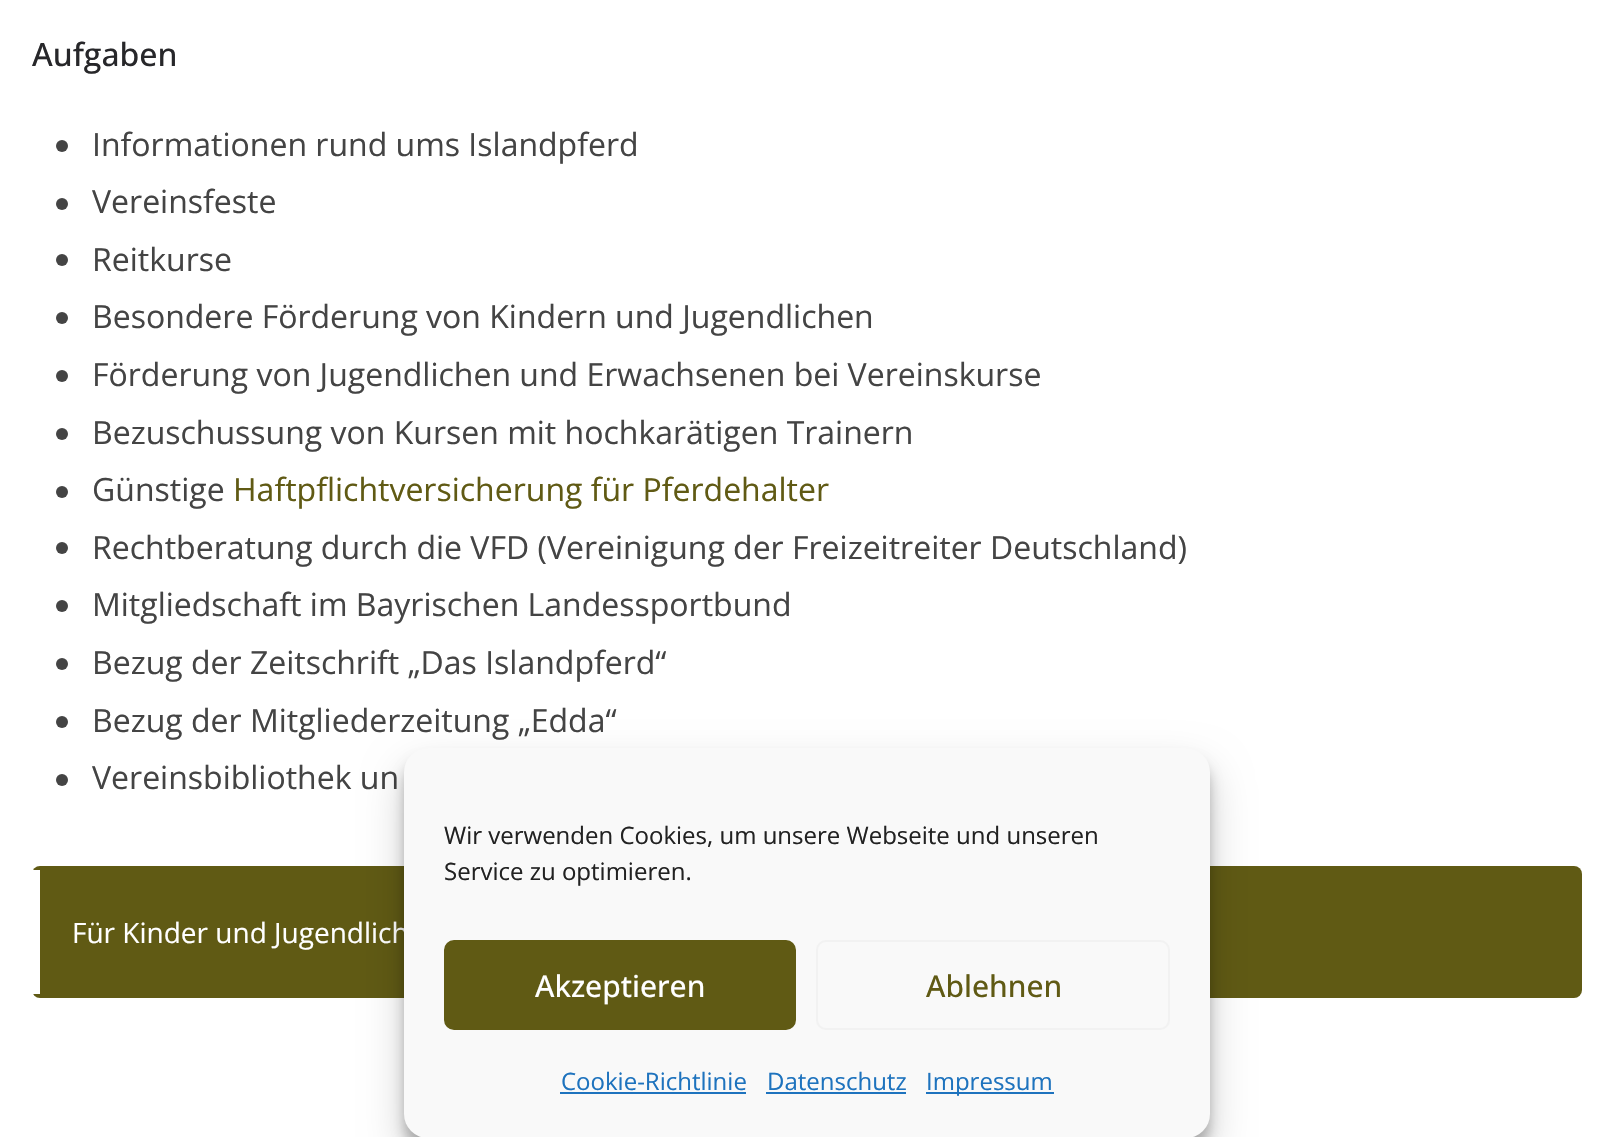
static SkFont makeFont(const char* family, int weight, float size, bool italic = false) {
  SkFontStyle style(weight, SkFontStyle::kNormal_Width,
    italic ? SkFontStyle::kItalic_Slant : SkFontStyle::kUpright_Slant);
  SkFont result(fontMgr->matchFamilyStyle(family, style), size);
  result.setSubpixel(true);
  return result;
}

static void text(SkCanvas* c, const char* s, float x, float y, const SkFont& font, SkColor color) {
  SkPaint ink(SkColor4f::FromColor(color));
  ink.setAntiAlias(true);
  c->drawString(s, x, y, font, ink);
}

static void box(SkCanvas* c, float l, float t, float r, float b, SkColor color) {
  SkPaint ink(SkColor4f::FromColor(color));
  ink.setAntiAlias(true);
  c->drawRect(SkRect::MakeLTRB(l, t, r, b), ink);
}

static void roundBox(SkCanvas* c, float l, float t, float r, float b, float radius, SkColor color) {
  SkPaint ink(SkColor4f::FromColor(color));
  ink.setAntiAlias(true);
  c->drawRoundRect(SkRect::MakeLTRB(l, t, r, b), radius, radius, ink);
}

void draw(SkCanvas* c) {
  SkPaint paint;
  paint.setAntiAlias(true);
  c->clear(0xffffffff);
  SkFont face1 = makeFont("Open Sans", 500, 32);
  text(c, "Aufgaben", 32, 66, face1, 0xff27272a);
  paint.setColor(0xff444444);
  c->drawCircle(62, 146, 6, paint);
  SkFont face2 = makeFont("Open Sans", 400, 32);
  text(c, "Informationen rund ums Islandpferd", 92, 156, face2, 0xff444444);
  c->drawCircle(62, 204, 6, paint);
  text(c, "Vereinsfeste", 92, 213, face2, 0xff444444);
  c->drawCircle(62, 260, 6, paint);
  text(c, "Reitkurse", 92, 271, face2, 0xff444444);
  c->drawCircle(62, 318, 6, paint);
  text(c, "Besondere Förderung von Kindern und Jugendlichen", 92, 328, face2, 0xff444444);
  c->drawCircle(62, 376, 6, paint);
  text(c, "Förderung von Jugendlichen und Erwachsenen bei Vereinskurse", 92, 386, face2, 0xff444444);
  c->drawCircle(62, 434, 6, paint);
  text(c, "Bezuschussung von Kursen mit hochkarätigen Trainern", 92, 444, face2, 0xff444444);
  c->drawCircle(62, 492, 6, paint);
  text(c, "Günstige", 92, 501, face2, 0xff444444);
  text(c, "Haftpflichtversicherung für Pferdehalter", 233, 501, face2, 0xff605a14);
  c->drawCircle(62, 548, 6, paint);
  text(c, "Rechtberatung durch die VFD (Vereinigung der Freizeitreiter Deutschland)", 92, 559, face2, 0xff444444);
  c->drawCircle(62, 606, 6, paint);
  text(c, "Mitgliedschaft im Bayrischen Landessportbund", 92, 616, face2, 0xff444444);
  c->drawCircle(62, 664, 6, paint);
  text(c, "Bezug der Zeitschrift „Das Islandpferd“", 92, 674, face2, 0xff444444);
  c->drawCircle(62, 722, 6, paint);
  text(c, "Bezug der Mitgliederzeitung „Edda“", 92, 732, face2, 0xff444444);
  c->drawCircle(62, 780, 6, paint);
  text(c, "Vereinsbibliothek un", 92, 789, face2, 0xff444444);
  roundBox(c, 32, 866, 1582, 998, 8, 0xff605a14);
  box(c, 32, 870, 40, 994, 0xffffffff);
  SkFont face3 = makeFont("Open Sans", 400, 28);
  text(c, "Für Kinder und Jugendlich", 72, 943, face3, 0xffffffff);
  paint.setColor(0x3b000000);
  paint.setMaskFilter(SkMaskFilter::MakeBlur(kNormal_SkBlurStyle, 6));
  c->drawRoundRect(SkRect::MakeLTRB(404, 760, 1210, 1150), 24, 24, paint);
  paint.setMaskFilter(nullptr);
  paint.setColor(0x30000000);
  paint.setMaskFilter(SkMaskFilter::MakeBlur(kNormal_SkBlurStyle, 20));
  c->drawRoundRect(SkRect::MakeLTRB(404, 768, 1210, 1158), 24, 24, paint);
  paint.setMaskFilter(nullptr);
  roundBox(c, 404, 748, 1210, 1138, 24, 0xfff9f9f9);
  SkFont face4 = makeFont("Open Sans", 400, 24);
  text(c, "Wir verwenden Cookies, um unsere Webseite und unseren", 444, 844, face4, 0xff222222);
  text(c, "Service zu optimieren.", 444, 880, face4, 0xff222222);
  paint.setColor(0xff605a14);
  c->drawRoundRect(SkRect::MakeLTRB(445, 941, 795, 1029), 9, 9, paint);
  paint.setStyle(SkPaint::kStroke_Style);
  paint.setStrokeWidth(2);
  c->drawRoundRect(SkRect::MakeLTRB(445, 941, 795, 1029), 9, 9, paint);
  SkFont face5 = makeFont("Open Sans", 500, 30);
  text(c, "Akzeptieren", 535, 997, face5, 0xffffffff);
  paint.setColor(0xfff2f2f2);
  c->drawRoundRect(SkRect::MakeLTRB(817, 941, 1169, 1029), 9, 9, paint);
  text(c, "Ablehnen", 926, 997, face5, 0xff605a14);
  text(c, "Cookie-Richtlinie", 561, 1090, face4, 0xff1e73be);
  box(c, 560, 1092, 746, 1094, 0xff1e73be);
  text(c, "Datenschutz", 767, 1090, face4, 0xff1e73be);
  box(c, 766, 1092, 906, 1094, 0xff1e73be);
  box(c, 926, 1092, 1054, 1094, 0xff1e73be);
  text(c, "Impressum", 926, 1090, face4, 0xff1e73be);
}
